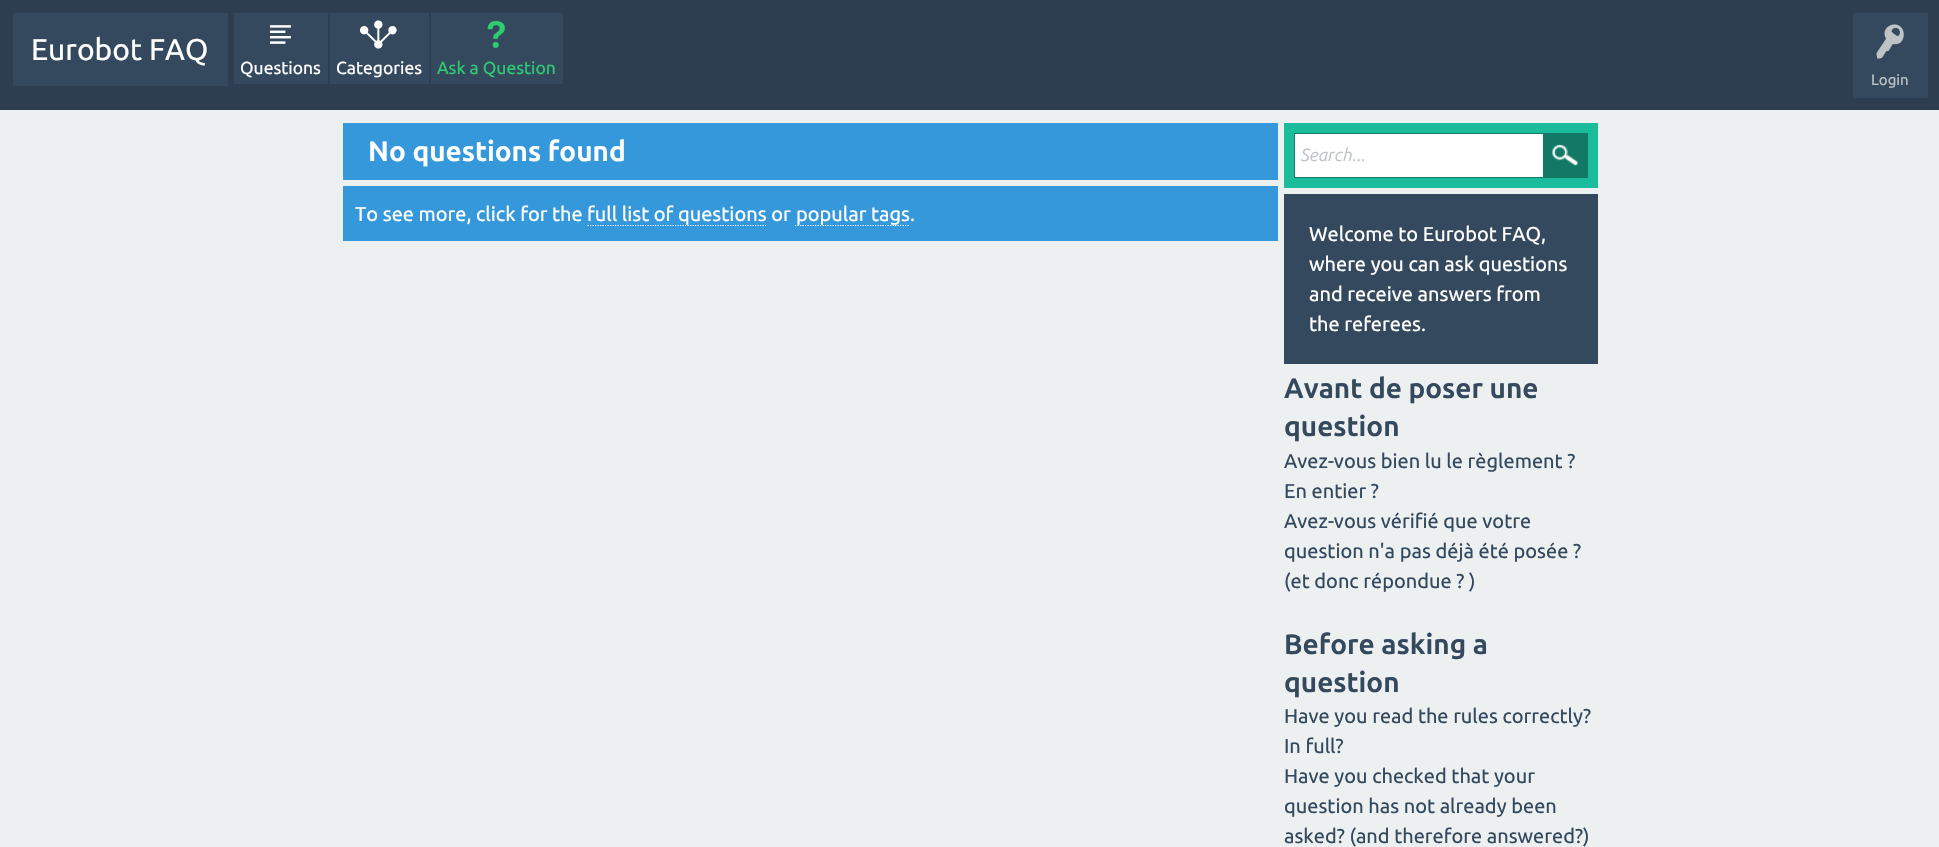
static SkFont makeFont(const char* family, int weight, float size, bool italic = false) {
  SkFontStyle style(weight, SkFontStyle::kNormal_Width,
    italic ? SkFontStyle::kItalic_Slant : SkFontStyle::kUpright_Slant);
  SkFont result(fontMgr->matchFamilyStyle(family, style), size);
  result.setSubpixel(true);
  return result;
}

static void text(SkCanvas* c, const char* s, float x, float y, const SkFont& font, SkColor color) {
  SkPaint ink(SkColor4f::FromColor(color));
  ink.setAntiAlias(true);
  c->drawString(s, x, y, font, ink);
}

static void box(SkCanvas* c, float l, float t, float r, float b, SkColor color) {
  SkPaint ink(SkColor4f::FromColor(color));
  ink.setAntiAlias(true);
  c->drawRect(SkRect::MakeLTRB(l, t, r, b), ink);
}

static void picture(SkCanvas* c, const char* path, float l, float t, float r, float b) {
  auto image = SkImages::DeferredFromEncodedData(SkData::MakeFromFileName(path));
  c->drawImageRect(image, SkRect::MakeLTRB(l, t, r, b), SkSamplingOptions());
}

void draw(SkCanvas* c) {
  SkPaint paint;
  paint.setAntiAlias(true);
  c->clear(0xffecf0f1);
  box(c, 0, 0, 1939, 110, 0xff2c3e50);
  box(c, 13, 13, 228, 86, 0xff34495e);
  SkFont face1 = makeFont("Ubuntu", 400, 30);
  text(c, "Eurobot FAQ", 31, 60, face1, 0xffffffff);
  box(c, 234, 13, 328, 84, 0xff34495e);
  picture(c, "img_01.png", 270, 25, 291, 44);
  SkFont face2 = makeFont("Ubuntu", 400, 17.5f);
  text(c, "Questions", 240, 74, face2, 0xffffffff);
  box(c, 330, 13, 429, 84, 0xff34495e);
  picture(c, "img_02.png", 360, 20, 397, 49);
  text(c, "Categories", 336, 74, face2, 0xffffffff);
  box(c, 431, 13, 563, 84, 0xff34495e);
  picture(c, "img_03.png", 487, 21, 505, 48);
  text(c, "Ask a Question", 437, 74, face2, 0xff2ecc71);
  box(c, 1853, 13, 1928, 98, 0xff34495e);
  picture(c, "img_04.png", 1876, 24, 1904, 59);
  SkFont face3 = makeFont("Ubuntu", 400, 15);
  text(c, "Login", 1871, 85, face3, 0xffbdc3c7);
  box(c, 343, 123, 1278, 180, 0xff3498db);
  SkFont face4 = makeFont("Ubuntu", 700, 28);
  text(c, "No questions found", 368, 161, face4, 0xffffffff);
  box(c, 343, 186, 1278, 241, 0xff3498db);
  SkFont face5 = makeFont("Ubuntu", 400, 20);
  text(c, "To see more, click for the", 355, 221, face5, 0xffffffff);
  paint.setStyle(SkPaint::kStroke_Style);
  paint.setStrokeWidth(1.2f);
  paint.setColor(0xffffffff);
  paint.setPathEffect(SkDashPathEffect::Make({{1.25f, 1.25f}}, 0));
  c->drawPath(SkPathBuilder().moveTo(587.5f, 225.5f).lineTo(766, 225.5f).detach(), paint);
  paint.setPathEffect(nullptr);
  text(c, "full list of questions or", 587, 221, face5, 0xffffffff);
  paint.setPathEffect(SkDashPathEffect::Make({{1.25f, 1.25f}}, 0));
  c->drawPath(SkPathBuilder().moveTo(795, 225.5f).lineTo(910, 225.5f).detach(), paint);
  paint.setPathEffect(nullptr);
  text(c, "popular tags.", 796, 221, face5, 0xffffffff);
  box(c, 1284, 123, 1598, 188, 0xff1abc9c);
  box(c, 1295, 134, 1543, 177, 0xffffffff);
  paint.setStrokeWidth(1);
  paint.setColor(0xff117964);
  c->drawRect(SkRect::MakeLTRB(1294.5f, 133.5f, 1587.5f, 177.5f), paint);
  SkFont face6 = makeFont("Ubuntu", 400, 17.5f, true);
  text(c, "Search...", 1301, 161, face6, 0xffbdc3c7);
  box(c, 1543, 134, 1587, 177, 0xff117964);
  picture(c, "img_05.png", 1552, 144, 1578, 166);
  box(c, 1284, 194, 1598, 364, 0xff34495e);
  text(c, "Welcome to Eurobot FAQ,", 1309, 241, face5, 0xffffffff);
  text(c, "where you can ask questions", 1309, 271, face5, 0xffffffff);
  text(c, "and receive answers from", 1309, 301, face5, 0xffffffff);
  text(c, "the referees.", 1309, 331, face5, 0xffffffff);
  text(c, "Avant de poser une", 1284, 398, face4, 0xff34495e);
  text(c, "question", 1284, 436, face4, 0xff34495e);
  text(c, "Avez-vous bien lu le règlement ?", 1284, 468, face5, 0xff34495e);
  text(c, "En entier ?", 1284, 498, face5, 0xff34495e);
  text(c, "Avez-vous vérifié que votre", 1284, 528, face5, 0xff34495e);
  text(c, "question n'a pas déjà été posée ?", 1284, 558, face5, 0xff34495e);
  text(c, "(et donc répondue ? )", 1284, 588, face5, 0xff34495e);
  text(c, "Before asking a", 1284, 654, face4, 0xff34495e);
  text(c, "question", 1284, 692, face4, 0xff34495e);
  text(c, "Have you read the rules correctly?", 1284, 723, face5, 0xff34495e);
  text(c, "In full?", 1284, 753, face5, 0xff34495e);
  text(c, "Have you checked that your", 1284, 783, face5, 0xff34495e);
  text(c, "question has not already been", 1284, 813, face5, 0xff34495e);
  text(c, "asked? (and therefore answered?)", 1284, 843, face5, 0xff34495e);
}
